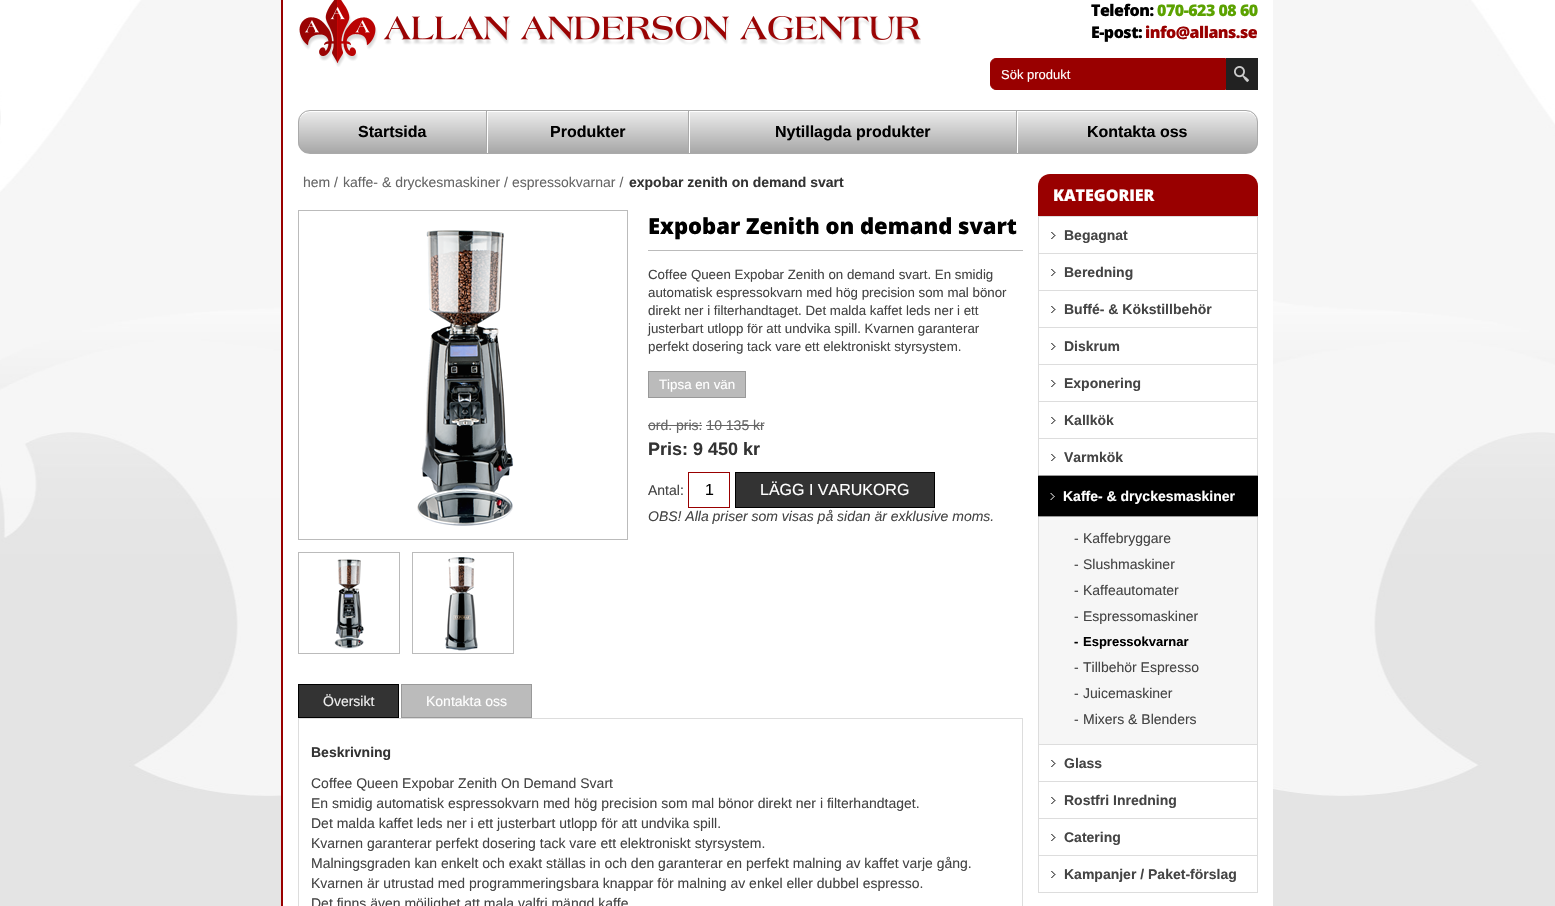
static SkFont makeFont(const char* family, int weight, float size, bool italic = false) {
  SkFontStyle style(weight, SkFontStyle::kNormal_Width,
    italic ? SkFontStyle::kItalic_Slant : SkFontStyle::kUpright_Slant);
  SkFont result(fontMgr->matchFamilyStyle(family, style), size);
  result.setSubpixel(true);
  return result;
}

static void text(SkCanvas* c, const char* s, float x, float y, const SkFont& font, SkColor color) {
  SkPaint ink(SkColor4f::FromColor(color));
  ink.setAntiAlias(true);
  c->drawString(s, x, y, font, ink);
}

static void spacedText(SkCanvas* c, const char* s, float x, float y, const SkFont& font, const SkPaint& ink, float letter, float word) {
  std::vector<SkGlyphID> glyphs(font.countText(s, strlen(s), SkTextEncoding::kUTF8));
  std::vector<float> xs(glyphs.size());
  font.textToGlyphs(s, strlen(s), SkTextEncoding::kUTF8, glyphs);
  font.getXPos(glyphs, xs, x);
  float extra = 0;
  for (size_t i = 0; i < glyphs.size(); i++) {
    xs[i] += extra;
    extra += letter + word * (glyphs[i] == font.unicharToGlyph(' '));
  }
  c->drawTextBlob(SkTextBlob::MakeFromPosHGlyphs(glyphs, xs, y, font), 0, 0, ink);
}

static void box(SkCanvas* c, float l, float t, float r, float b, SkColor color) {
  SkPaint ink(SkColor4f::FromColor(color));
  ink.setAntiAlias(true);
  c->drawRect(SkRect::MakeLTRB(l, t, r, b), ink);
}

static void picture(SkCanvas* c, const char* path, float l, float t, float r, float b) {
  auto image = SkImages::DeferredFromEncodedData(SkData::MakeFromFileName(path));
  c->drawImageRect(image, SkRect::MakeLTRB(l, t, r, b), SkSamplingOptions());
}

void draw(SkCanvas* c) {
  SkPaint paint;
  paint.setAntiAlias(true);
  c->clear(0xffe4e4e4);
  picture(c, "img_01.png", 0, 0, 1555, 796);
  paint.setColor(0xff990000);
  c->drawPath(SkPathBuilder().moveTo(293, -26).cubicTo(286, -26, 281, -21, 281, -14).lineTo(281, 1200).cubicTo(281, 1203, 282, 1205, 283, 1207).lineTo(283, -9).cubicTo(283, -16, 288, -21, 295, -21).lineTo(1261, -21).cubicTo(1265, -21, 1269, -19, 1271, -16).cubicTo(1270, -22, 1265, -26, 1259, -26).close().detach(), paint);
  box(c, 283, 0, 1273, 906, 0xffffffff);
  picture(c, "img_02.png", 299, 0, 921, 67);
  SkFont face1 = makeFont("Open Sans", 800, 16);
  paint.setColor(0xff000000);
  spacedText(c, "Telefon:", 1091, 16, face1, paint, -0.5f, 0);
  paint.setColor(0xff5ba200);
  spacedText(c, "070-623 08 60", 1157, 16, face1, paint, -0.5f, 0);
  paint.setColor(0xff000000);
  spacedText(c, "E-post:", 1091, 38, face1, paint, -0.5f, 0);
  paint.setColor(0xff990000);
  spacedText(c, "info@allans.se", 1145, 38, face1, paint, -0.5f, 0);
  c->drawPath(SkPathBuilder().moveTo(996, 58.5f).lineTo(1225.5f, 58.5f).lineTo(1225.5f, 89.5f).lineTo(996, 89.5f).cubicTo(993, 89.5f, 990.5f, 87, 990.5f, 84).lineTo(990.5f, 64).cubicTo(990.5f, 61, 993, 58.5f, 996, 58.5f).close().detach(), paint);
  paint.setStyle(SkPaint::kStroke_Style);
  paint.setStrokeWidth(1);
  c->drawPath(SkPathBuilder().moveTo(996, 58.5f).lineTo(1225.5f, 58.5f).lineTo(1225.5f, 89.5f).lineTo(996, 89.5f).cubicTo(993, 89.5f, 990.5f, 87, 990.5f, 84).lineTo(990.5f, 64).cubicTo(990.5f, 61, 993, 58.5f, 996, 58.5f).close().detach(), paint);
  SkFont face2 = makeFont("Liberation Sans", 400, 13);
  text(c, "Sök produkt", 1001, 79, face2, 0xffffffff);
  box(c, 1226, 58, 1258, 90, 0xff222222);
  picture(c, "img_03.png", 1234, 66, 1249, 82);
  c->save();
  c->clipPath(SkPathBuilder().moveTo(310, 110).lineTo(1246, 110).cubicTo(1252.5f, 110, 1258, 115.5f, 1258, 122).lineTo(1258, 142).cubicTo(1258, 148.5f, 1252.5f, 154, 1246, 154).lineTo(310, 154).cubicTo(303.5f, 154, 298, 148.5f, 298, 142).lineTo(298, 122).cubicTo(298, 115.5f, 303.5f, 110, 310, 110).close().detach(), true);
  paint.setStyle(SkPaint::kFill_Style);
  {
    const SkColor colors[] = {0xffececec, 0xffa7a7a7};
    const float stops[] = {0, 1};
    const SkPoint ends[] = {{778, 111}, {778, 153}};
    paint.setShader(SkGradientShader::MakeLinear(ends, colors, stops, 2, SkTileMode::kClamp));
    paint.setAlpha(255);
  }
  c->drawRect(SkRect::MakeLTRB(298, 111, 1258, 153), paint);
  c->restore();
  paint.setShader(nullptr);
  paint.setColor(0xffffffff);
  c->drawPath(SkPathBuilder().moveTo(310, 112).lineTo(1246, 112).cubicTo(1252, 112, 1257, 117, 1257, 123).cubicTo(1257, 117, 1253, 111, 1246, 111).lineTo(310, 111).cubicTo(303, 111, 299, 117, 299, 123).cubicTo(299, 117, 304, 112, 310, 112).close().detach(), paint);
  paint.setStyle(SkPaint::kStroke_Style);
  paint.setColor(0xffaaaaaa);
  c->drawRoundRect(SkRect::MakeLTRB(298.5f, 110.5f, 1257.5f, 153.5f), 11.5f, 11.5f, paint);
  box(c, 486, 111, 487, 153, 0xffaaaaaa);
  SkFont face3 = makeFont("Liberation Sans", 700, 16);
  text(c, "Startsida", 358, 137, face3, 0xff000000);
  box(c, 688, 111, 689, 153, 0xffaaaaaa);
  box(c, 487, 111, 488, 153, 0xffffffff);
  text(c, "Produkter", 550, 137, face3, 0xff000000);
  box(c, 1016, 111, 1017, 153, 0xffaaaaaa);
  box(c, 689, 111, 690, 153, 0xffffffff);
  text(c, "Nytillagda produkter", 775, 137, face3, 0xff000000);
  box(c, 1017, 111, 1018, 153, 0xffffffff);
  text(c, "Kontakta oss", 1087, 137, face3, 0xff000000);
  SkFont face4 = makeFont("Liberation Sans", 400, 14);
  text(c, "hem /", 303, 187, face4, 0xff666666);
  text(c, "kaffe- & dryckesmaskiner /", 343, 187, face4, 0xff666666);
  text(c, "espressokvarnar /", 512, 187, face4, 0xff666666);
  SkFont face5 = makeFont("Liberation Sans", 700, 14);
  text(c, "expobar zenith on demand svart", 629, 187, face5, 0xff333333);
  paint.setColor(0xffbbbbbb);
  c->drawRect(SkRect::MakeLTRB(298.5f, 210.5f, 627.5f, 539.5f), paint);
  picture(c, "img_04.png", 417, 230, 514, 526);
  c->drawRect(SkRect::MakeLTRB(298.5f, 552.5f, 399.5f, 653.5f), paint);
  picture(c, "img_05.png", 334, 559, 364, 649);
  c->drawRect(SkRect::MakeLTRB(412.5f, 552.5f, 513.5f, 653.5f), paint);
  picture(c, "img_06.png", 445, 557, 478, 651);
  box(c, 648, 250, 1023, 251, 0xffbbbbbb);
  SkFont face6 = makeFont("Open Sans", 800, 22);
  text(c, "Expobar Zenith on demand svart", 648, 234, face6, 0xff000000);
  SkFont face7 = makeFont("Liberation Sans", 400, 13.3f);
  text(c, "Coffee Queen Expobar Zenith on demand svart. En smidig", 648, 279, face7, 0xff444444);
  text(c, "automatisk espressokvarn med hög precision som mal bönor", 648, 297, face7, 0xff444444);
  text(c, "direkt ner i filterhandtaget. Det malda kaffet leds ner i ett", 648, 315, face7, 0xff444444);
  text(c, "justerbart utlopp för att undvika spill. Kvarnen garanterar", 648, 333, face7, 0xff444444);
  text(c, "perfekt dosering tack vare ett elektroniskt styrsystem.", 648, 351, face7, 0xff444444);
  paint.setStyle(SkPaint::kFill_Style);
  c->drawRect(SkRect::MakeLTRB(648.5f, 371.5f, 745.5f, 397.5f), paint);
  paint.setStyle(SkPaint::kStroke_Style);
  paint.setColor(0xff999999);
  c->drawRect(SkRect::MakeLTRB(648.5f, 371.5f, 745.5f, 397.5f), paint);
  text(c, "Tipsa en vän", 659, 389, face7, 0xffffffff);
  text(c, "ord. pris: 10 135 kr", 648, 430, face4, 0xff666666);
  box(c, 648, 425, 702, 426, 0xff666666);
  box(c, 706, 425, 764, 426, 0xff666666);
  SkFont face8 = makeFont("Liberation Sans", 700, 18);
  text(c, "Pris: 9 450 kr", 648, 455, face8, 0xff333333);
  text(c, "Antal:", 648, 495, face4, 0xff444444);
  paint.setColor(0xff990000);
  c->drawRect(SkRect::MakeLTRB(688.5f, 472.5f, 729.5f, 507.5f), paint);
  SkFont face9 = makeFont("Liberation Sans", 400, 16);
  text(c, "1", 705, 495, face9, 0xff000000);
  paint.setStyle(SkPaint::kFill_Style);
  paint.setColor(0xff333333);
  c->drawRect(SkRect::MakeLTRB(735.5f, 472.5f, 934.5f, 507.5f), paint);
  paint.setStyle(SkPaint::kStroke_Style);
  paint.setColor(0xff000000);
  c->drawRect(SkRect::MakeLTRB(735.5f, 472.5f, 934.5f, 507.5f), paint);
  text(c, "LÄGG I VARUKORG", 760, 495, face9, 0xffffffff);
  SkFont face10 = makeFont("Liberation Sans", 400, 14, true);
  text(c, "OBS! Alla priser som visas på sidan är exklusive moms.", 648, 521, face10, 0xff444444);
  paint.setStyle(SkPaint::kFill_Style);
  paint.setColor(0xff333333);
  c->drawRect(SkRect::MakeLTRB(298.5f, 684.5f, 398.5f, 717.5f), paint);
  paint.setStyle(SkPaint::kStroke_Style);
  paint.setColor(0xff000000);
  c->drawRect(SkRect::MakeLTRB(298.5f, 684.5f, 398.5f, 717.5f), paint);
  text(c, "Översikt", 323, 706, face4, 0xffeeeeee);
  paint.setStyle(SkPaint::kFill_Style);
  paint.setColor(0xffbbbbbb);
  c->drawRect(SkRect::MakeLTRB(401.5f, 684.5f, 531.5f, 717.5f), paint);
  paint.setStyle(SkPaint::kStroke_Style);
  paint.setColor(0xff999999);
  c->drawRect(SkRect::MakeLTRB(401.5f, 684.5f, 531.5f, 717.5f), paint);
  text(c, "Kontakta oss", 426, 706, face4, 0xffffffff);
  paint.setColor(0xffdddddd);
  c->drawRect(SkRect::MakeLTRB(298.5f, 718.5f, 1022.5f, 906.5f), paint);
  text(c, "Beskrivning", 311, 757, face5, 0xff333333);
  text(c, "Coffee Queen Expobar Zenith On Demand Svart", 311, 788, face4, 0xff444444);
  text(c, "En smidig automatisk espressokvarn med hög precision som mal bönor direkt ner i filterhandtaget.", 311, 808, face4, 0xff444444);
  text(c, "Det malda kaffet leds ner i ett justerbart utlopp för att undvika spill.", 311, 828, face4, 0xff444444);
  text(c, "Kvarnen garanterar perfekt dosering tack vare ett elektroniskt styrsystem.", 311, 848, face4, 0xff444444);
  text(c, "Malningsgraden kan enkelt och exakt ställas in och den garanterar en perfekt malning av kaffet varje gång.", 311, 868, face4, 0xff444444);
  text(c, "Kvarnen är utrustad med programmeringsbara knappar för malning av enkel eller dubbel espresso.", 311, 888, face4, 0xff444444);
  text(c, "Det finns även möjlighet att mala valfri mängd kaffe", 311, 908, face4, 0xff444444);
  paint.setStyle(SkPaint::kFill_Style);
  paint.setColor(0xff990000);
  c->drawPath(SkPathBuilder().moveTo(1050, 174).lineTo(1246, 174).cubicTo(1252.5f, 174, 1258, 179.5f, 1258, 186).lineTo(1258, 216).lineTo(1038, 216).lineTo(1038, 186).cubicTo(1038, 179.5f, 1043.5f, 174, 1050, 174).close().detach(), paint);
  text(c, "KATEGORIER", 1053, 201, face1, 0xffffffff);
  paint.setStyle(SkPaint::kStroke_Style);
  paint.setColor(0xffdddddd);
  c->drawRect(SkRect::MakeLTRB(1038.5f, 216.5f, 1257.5f, 892.5f), paint);
  picture(c, "img_07.png", 1051, 232, 1056, 239);
  text(c, "Begagnat", 1064, 240, face5, 0xff444444);
  box(c, 1039, 253, 1257, 254, 0xffdddddd);
  picture(c, "img_07.png", 1051, 269, 1056, 276);
  text(c, "Beredning", 1064, 277, face5, 0xff444444);
  box(c, 1039, 290, 1257, 291, 0xffdddddd);
  picture(c, "img_07.png", 1051, 306, 1056, 313);
  text(c, "Buffé- & Kökstillbehör", 1064, 314, face5, 0xff444444);
  box(c, 1039, 327, 1257, 328, 0xffdddddd);
  picture(c, "img_07.png", 1051, 343, 1056, 350);
  text(c, "Diskrum", 1064, 351, face5, 0xff444444);
  box(c, 1039, 364, 1257, 365, 0xffdddddd);
  picture(c, "img_07.png", 1051, 380, 1056, 387);
  text(c, "Exponering", 1064, 388, face5, 0xff444444);
  box(c, 1039, 401, 1257, 402, 0xffdddddd);
  picture(c, "img_07.png", 1051, 417, 1056, 424);
  text(c, "Kallkök", 1064, 425, face5, 0xff444444);
  box(c, 1039, 438, 1257, 439, 0xffdddddd);
  picture(c, "img_07.png", 1051, 454, 1056, 461);
  text(c, "Varmkök", 1064, 462, face5, 0xff444444);
  box(c, 1038, 476, 1258, 516, 0xff000000);
  picture(c, "img_08.png", 1050, 493, 1055, 500);
  box(c, 1038, 475, 1258, 476, 0xff999999);
  box(c, 1038, 516, 1258, 517, 0xff999999);
  text(c, "Kaffe- & dryckesmaskiner", 1063, 501, face5, 0xffffffff);
  box(c, 1039, 517, 1257, 744, 0xfff6f6f6);
  text(c, "-", 1074, 543, face4, 0xff444444);
  text(c, "Kaffebryggare", 1083, 543, face4, 0xff444444);
  text(c, "-", 1074, 569, face4, 0xff444444);
  text(c, "Slushmaskiner", 1083, 569, face4, 0xff444444);
  text(c, "-", 1074, 595, face4, 0xff444444);
  text(c, "Kaffeautomater", 1083, 595, face4, 0xff444444);
  text(c, "-", 1074, 621, face4, 0xff444444);
  text(c, "Espressomaskiner", 1083, 621, face4, 0xff444444);
  SkFont face11 = makeFont("Liberation Sans", 700, 13);
  text(c, "-", 1074, 646, face11, 0xff000000);
  text(c, "Espressokvarnar", 1083, 646, face11, 0xff000000);
  text(c, "-", 1074, 672, face4, 0xff444444);
  text(c, "Tillbehör Espresso", 1083, 672, face4, 0xff444444);
  text(c, "-", 1074, 698, face4, 0xff444444);
  text(c, "Juicemaskiner", 1083, 698, face4, 0xff444444);
  text(c, "-", 1074, 724, face4, 0xff444444);
  text(c, "Mixers & Blenders", 1083, 724, face4, 0xff444444);
  box(c, 1039, 744, 1257, 745, 0xffdddddd);
  picture(c, "img_07.png", 1051, 760, 1056, 767);
  text(c, "Glass", 1064, 768, face5, 0xff444444);
  box(c, 1039, 781, 1257, 782, 0xffdddddd);
  picture(c, "img_07.png", 1051, 797, 1056, 804);
  text(c, "Rostfri Inredning", 1064, 805, face5, 0xff444444);
  box(c, 1039, 818, 1257, 819, 0xffdddddd);
  picture(c, "img_07.png", 1051, 834, 1056, 841);
  text(c, "Catering", 1064, 842, face5, 0xff444444);
  box(c, 1039, 855, 1257, 856, 0xffdddddd);
  picture(c, "img_07.png", 1051, 871, 1056, 878);
  text(c, "Kampanjer / Paket-förslag", 1064, 879, face5, 0xff444444);
}
